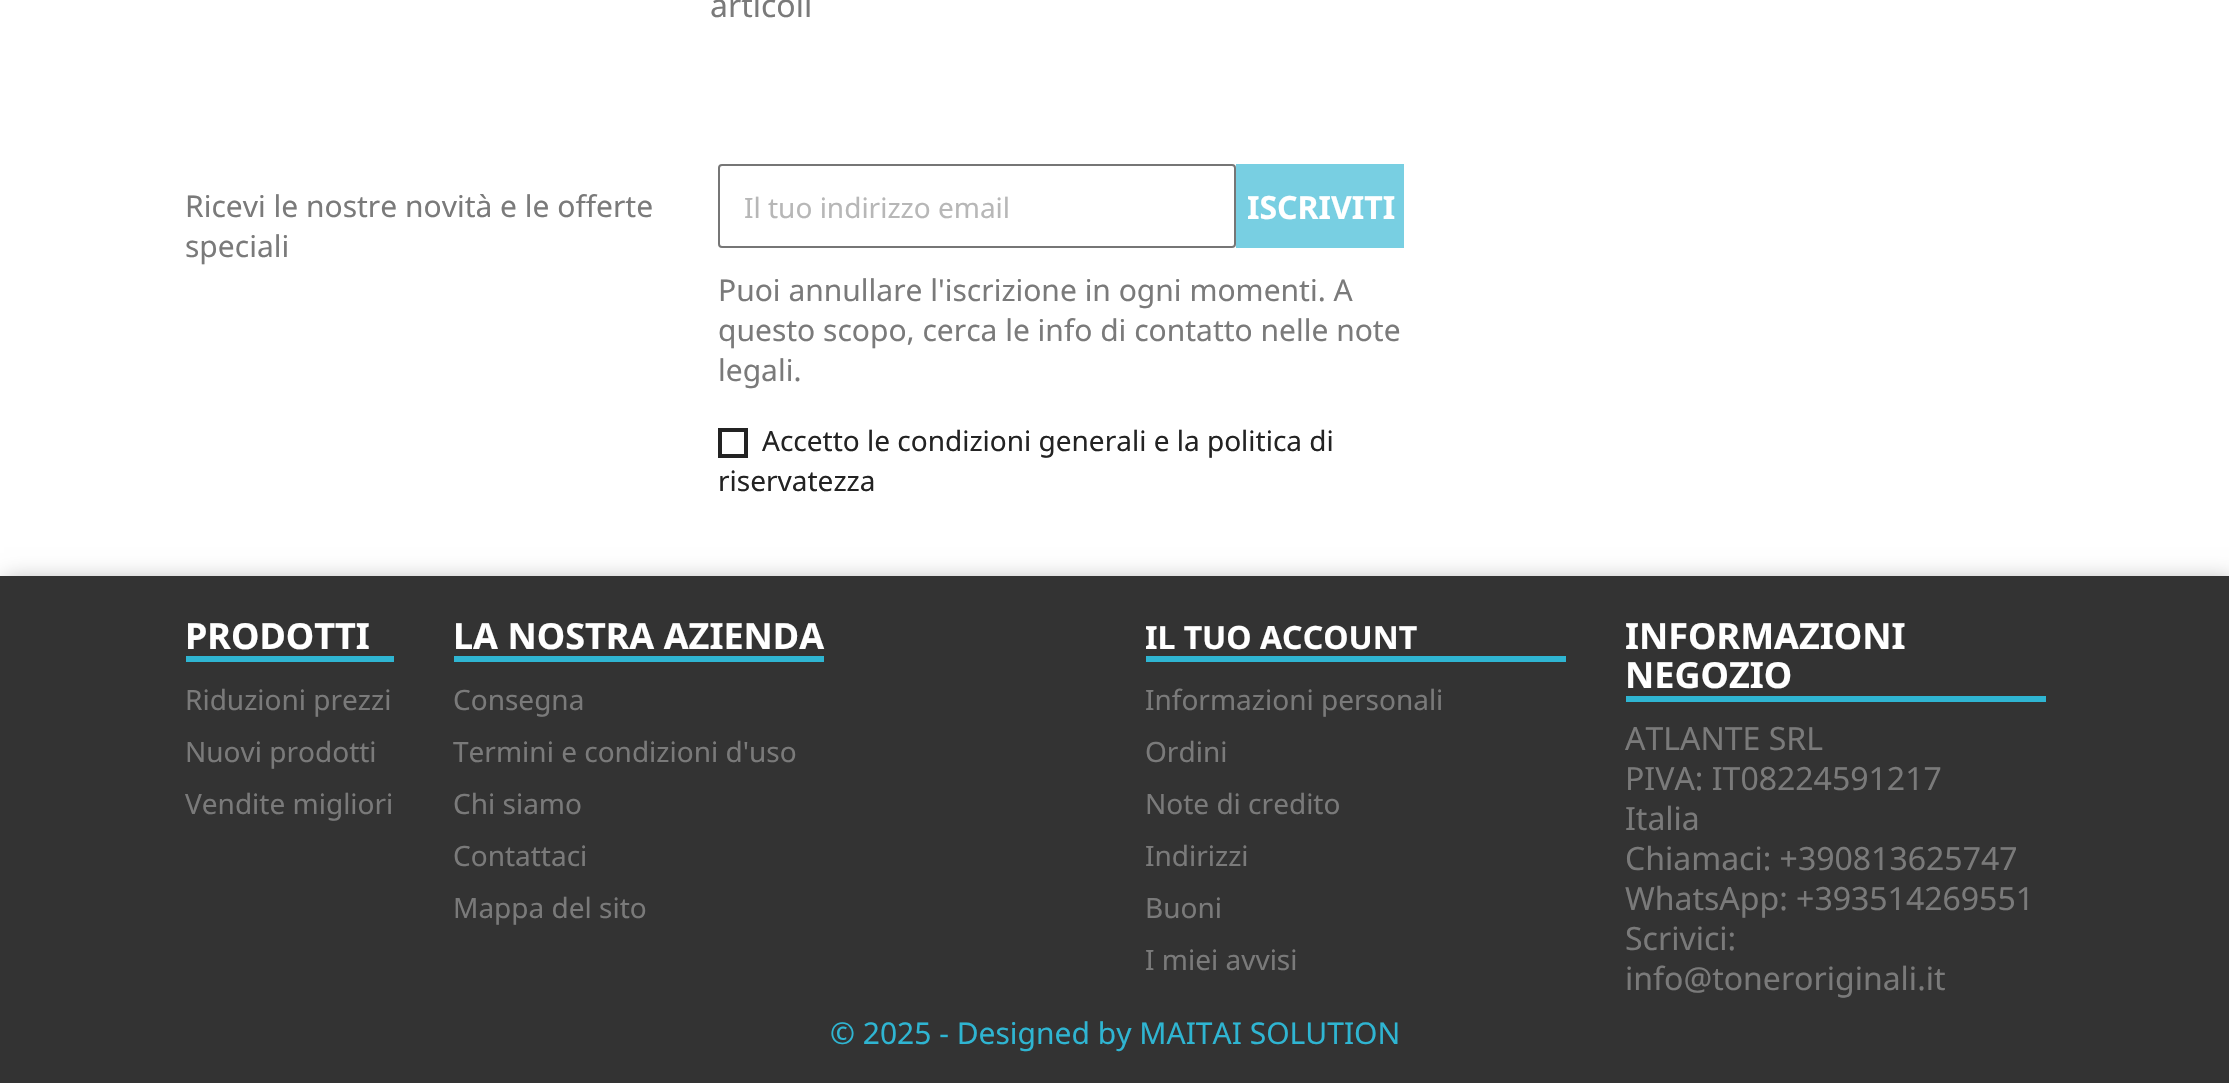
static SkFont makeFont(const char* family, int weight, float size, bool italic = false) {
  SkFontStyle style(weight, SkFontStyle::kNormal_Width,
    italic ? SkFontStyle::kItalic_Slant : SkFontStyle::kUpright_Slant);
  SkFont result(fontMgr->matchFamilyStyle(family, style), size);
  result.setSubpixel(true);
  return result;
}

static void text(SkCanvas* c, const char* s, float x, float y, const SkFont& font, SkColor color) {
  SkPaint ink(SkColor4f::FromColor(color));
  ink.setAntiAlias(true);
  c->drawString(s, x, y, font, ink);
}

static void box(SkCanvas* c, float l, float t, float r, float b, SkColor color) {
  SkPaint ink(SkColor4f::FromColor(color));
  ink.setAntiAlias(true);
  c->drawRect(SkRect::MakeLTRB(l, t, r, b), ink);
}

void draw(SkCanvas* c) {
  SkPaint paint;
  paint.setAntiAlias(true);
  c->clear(0xffffffff);
  SkFont face1 = makeFont("Noto Sans", 400, 32);
  text(c, "articoli", 710, 17, face1, 0xff7a7a7a);
  SkFont face2 = makeFont("Noto Sans", 400, 30);
  text(c, "Ricevi le nostre novità e le offerte", 185, 217, face2, 0xff7a7a7a);
  text(c, "speciali", 185, 257, face2, 0xff7a7a7a);
  paint.setStyle(SkPaint::kStroke_Style);
  paint.setStrokeWidth(2);
  paint.setColor(0xff767676);
  c->drawRoundRect(SkRect::MakeLTRB(719, 165, 1235, 247), 3, 3, paint);
  SkFont face3 = makeFont("Noto Sans", 400, 28);
  text(c, "Il tuo indirizzo email", 744, 218, face3, 0xffb7b7b7);
  box(c, 1236, 164, 1404, 248, 0xff78cfe2);
  SkFont face4 = makeFont("Noto Sans", 700, 32);
  text(c, "ISCRIVITI", 1247, 219, face4, 0xffffffff);
  text(c, "Puoi annullare l'iscrizione in ogni momenti. A", 718, 301, face2, 0xff7a7a7a);
  text(c, "questo scopo, cerca le info di contatto nelle note", 718, 341, face2, 0xff7a7a7a);
  text(c, "legali.", 718, 381, face2, 0xff7a7a7a);
  paint.setStrokeWidth(4);
  paint.setColor(0xff232323);
  c->drawRect(SkRect::MakeLTRB(720, 430, 746, 456), paint);
  text(c, "Accetto le condizioni generali e la politica di", 762, 451, face3, 0xff232323);
  text(c, "riservatezza", 718, 491, face3, 0xff232323);
  paint.setStyle(SkPaint::kFill_Style);
  paint.setColor(0x4d000000);
  paint.setMaskFilter(SkMaskFilter::MakeBlur(kNormal_SkBlurStyle, 11));
  c->drawRect(SkRect::MakeLTRB(4, 580, 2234, 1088), paint);
  paint.setMaskFilter(nullptr);
  box(c, 0, 576, 2229, 1083, 0xff333333);
  box(c, 186, 656, 394, 662, 0xff2fb5d2);
  SkFont face5 = makeFont("Noto Sans", 700, 36);
  text(c, "PRODOTTI", 185, 649, face5, 0xffffffff);
  text(c, "Riduzioni prezzi", 185, 710, face3, 0xff7a7a7a);
  text(c, "Nuovi prodotti", 185, 762, face3, 0xff7a7a7a);
  text(c, "Vendite migliori", 185, 814, face3, 0xff7a7a7a);
  box(c, 454, 656, 824, 662, 0xff2fb5d2);
  text(c, "LA NOSTRA AZIENDA", 453, 649, face5, 0xffffffff);
  text(c, "Consegna", 453, 710, face3, 0xff7a7a7a);
  text(c, "Termini e condizioni d'uso", 453, 762, face3, 0xff7a7a7a);
  text(c, "Chi siamo", 453, 814, face3, 0xff7a7a7a);
  text(c, "Contattaci", 453, 866, face3, 0xff7a7a7a);
  text(c, "Mappa del sito", 453, 918, face3, 0xff7a7a7a);
  box(c, 1146, 656, 1566, 662, 0xff2fb5d2);
  text(c, "IL TUO ACCOUNT", 1145, 649, face4, 0xffffffff);
  text(c, "Informazioni personali", 1145, 710, face3, 0xff7a7a7a);
  text(c, "Ordini", 1145, 762, face3, 0xff7a7a7a);
  text(c, "Note di credito", 1145, 814, face3, 0xff7a7a7a);
  text(c, "Indirizzi", 1145, 866, face3, 0xff7a7a7a);
  text(c, "Buoni", 1145, 918, face3, 0xff7a7a7a);
  text(c, "I miei avvisi", 1145, 970, face3, 0xff7a7a7a);
  box(c, 1626, 696, 2046, 702, 0xff2fb5d2);
  text(c, "INFORMAZIONI", 1625, 649, face5, 0xffffffff);
  text(c, "NEGOZIO", 1625, 688, face5, 0xffffffff);
  text(c, "ATLANTE SRL", 1625, 750, face1, 0xff7a7a7a);
  text(c, "PIVA: IT08224591217", 1625, 790, face1, 0xff7a7a7a);
  text(c, "Italia", 1625, 830, face1, 0xff7a7a7a);
  text(c, "Chiamaci: +390813625747", 1625, 870, face1, 0xff7a7a7a);
  text(c, "WhatsApp: +393514269551", 1625, 910, face1, 0xff7a7a7a);
  text(c, "Scrivici:", 1625, 950, face1, 0xff7a7a7a);
  text(c, "info@toneroriginali.it", 1625, 990, face1, 0xff7a7a7a);
  text(c, "© 2025 - Designed by MAITAI SOLUTION", 830, 1044, face2, 0xff2fb5d2);
}
